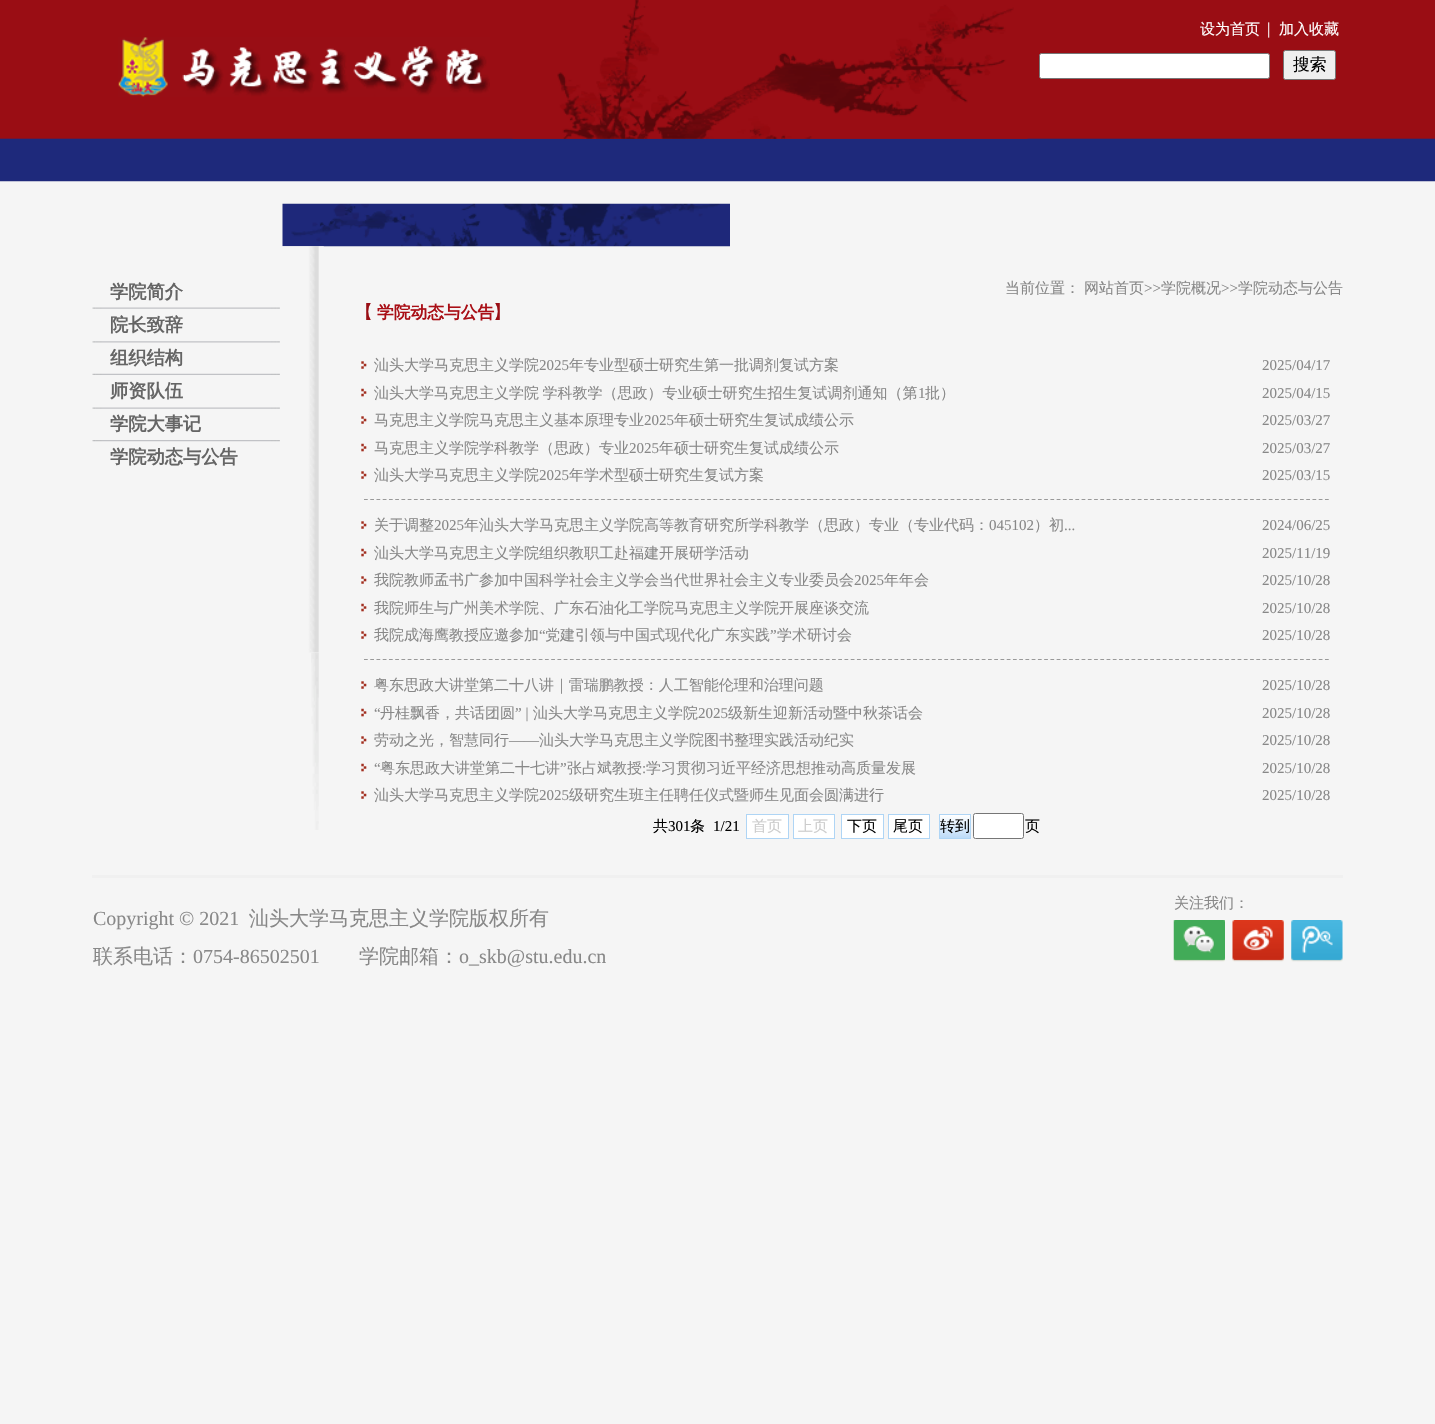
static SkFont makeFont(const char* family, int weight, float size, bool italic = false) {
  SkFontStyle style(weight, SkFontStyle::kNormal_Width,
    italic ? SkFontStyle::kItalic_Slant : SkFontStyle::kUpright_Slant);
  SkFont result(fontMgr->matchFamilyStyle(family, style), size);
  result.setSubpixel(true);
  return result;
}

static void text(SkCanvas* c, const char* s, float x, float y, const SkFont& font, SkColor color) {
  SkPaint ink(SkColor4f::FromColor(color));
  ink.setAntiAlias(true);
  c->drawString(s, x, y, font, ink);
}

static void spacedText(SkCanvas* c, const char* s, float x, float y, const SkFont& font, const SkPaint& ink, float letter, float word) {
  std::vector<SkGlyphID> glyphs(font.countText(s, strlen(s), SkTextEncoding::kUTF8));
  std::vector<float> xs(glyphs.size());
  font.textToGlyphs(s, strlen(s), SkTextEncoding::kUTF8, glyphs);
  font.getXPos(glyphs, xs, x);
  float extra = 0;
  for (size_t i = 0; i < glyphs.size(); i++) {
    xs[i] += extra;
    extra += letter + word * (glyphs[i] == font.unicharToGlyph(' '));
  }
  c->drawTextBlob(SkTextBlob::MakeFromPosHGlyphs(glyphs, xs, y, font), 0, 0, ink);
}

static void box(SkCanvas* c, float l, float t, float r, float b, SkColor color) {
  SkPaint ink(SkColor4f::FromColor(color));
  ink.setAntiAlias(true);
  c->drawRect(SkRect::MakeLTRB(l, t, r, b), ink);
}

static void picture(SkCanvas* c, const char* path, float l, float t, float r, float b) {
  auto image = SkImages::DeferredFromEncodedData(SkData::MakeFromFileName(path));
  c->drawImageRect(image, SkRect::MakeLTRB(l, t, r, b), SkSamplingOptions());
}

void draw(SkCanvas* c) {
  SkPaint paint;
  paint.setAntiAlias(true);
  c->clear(0xfff5f5f5);
  picture(c, "img_01.png", 0, 0, 1435, 182);
  picture(c, "img_02.png", 118, 37, 490, 97);
  picture(c, "img_03.png", 512, 0, 1028, 139);
  SkFont face1 = makeFont("WenQuanYi Zen Hei", 500, 15);
  text(c, "设为首页", 1200, 34, face1, 0xffffffff);
  SkFont face2 = makeFont("Liberation Serif", 400, 16.75f);
  text(c, "|", 1267, 34, face2, 0xffffffff);
  text(c, "加入收藏", 1279, 34, face1, 0xffffffff);
  paint.setColor(0xffffffff);
  c->drawRoundRect(SkRect::MakeLTRB(1039.5f, 53.5f, 1269.5f, 78.5f), 2, 2, paint);
  paint.setStyle(SkPaint::kStroke_Style);
  paint.setStrokeWidth(1);
  paint.setColor(0xff767676);
  c->drawRoundRect(SkRect::MakeLTRB(1039.5f, 53.5f, 1269.5f, 78.5f), 2, 2, paint);
  paint.setStyle(SkPaint::kFill_Style);
  paint.setColor(0xffefefef);
  c->drawRoundRect(SkRect::MakeLTRB(1283.5f, 50.5f, 1335.5f, 79.5f), 2, 2, paint);
  paint.setStyle(SkPaint::kStroke_Style);
  paint.setColor(0xff767676);
  c->drawRoundRect(SkRect::MakeLTRB(1283.5f, 50.5f, 1335.5f, 79.5f), 2, 2, paint);
  SkFont face3 = makeFont("WenQuanYi Zen Hei", 500, 16.75f);
  text(c, "搜索", 1293, 70, face3, 0xff000000);
  picture(c, "img_04.png", 282, 203, 730, 247);
  picture(c, "img_05.png", 282, 246, 324, 653);
  SkFont face4 = makeFont("WenQuanYi Zen Hei", 700, 18.25f);
  text(c, "学院简介", 110, 298, face4, 0xff656565);
  picture(c, "img_06.png", 92, 307, 280, 309);
  text(c, "院长致辞", 110, 331, face4, 0xff656565);
  picture(c, "img_07.png", 92, 341, 280, 343);
  text(c, "组织结构", 110, 364, face4, 0xff656565);
  picture(c, "img_08.png", 92, 373, 280, 375);
  text(c, "师资队伍", 110, 397, face4, 0xff656565);
  picture(c, "img_06.png", 92, 407, 280, 409);
  text(c, "学院大事记", 110, 430, face4, 0xff656565);
  picture(c, "img_09.png", 92, 440, 280, 442);
  text(c, "学院动态与公告", 110, 463, face4, 0xff656565);
  picture(c, "img_10.png", 311, 653, 319, 830);
  text(c, "当前位置：", 1005, 293, face1, 0xff888888);
  text(c, "网站首页", 1084, 293, face1, 0xff888888);
  SkFont face5 = makeFont("Liberation Serif", 400, 15);
  text(c, ">>", 1144, 293, face5, 0xff888888);
  text(c, "学院概况", 1161, 293, face1, 0xff888888);
  text(c, ">>", 1221, 293, face5, 0xff888888);
  text(c, "学院动态与公告", 1238, 293, face1, 0xff888888);
  SkFont face6 = makeFont("WenQuanYi Zen Hei", 500, 18);
  text(c, "【", 355, 318, face6, 0xff990e15);
  SkFont face7 = makeFont("WenQuanYi Zen Hei", 700, 16.75f);
  text(c, "学院动态与公告", 377, 318, face7, 0xffa90e15);
  text(c, "】", 493, 318, face6, 0xff990e15);
  picture(c, "img_11.png", 361, 361, 367, 369);
  text(c, "汕头大学马克思主义学院", 374, 370, face1, 0xff888888);
  text(c, "2025", 539, 370, face5, 0xff888888);
  text(c, "年专业型硕士研究生第一批调剂复试方案", 569, 370, face1, 0xff888888);
  text(c, "2025/04/17", 1262, 370, face5, 0xff888888);
  picture(c, "img_12.png", 361, 388, 367, 397);
  paint.setStyle(SkPaint::kFill_Style);
  paint.setColor(0xff888888);
  spacedText(c, "汕头大学马克思主义学院 学科教学（思政）专业硕士研究生招生复试调剂通知（第", 374, 398, face1, paint, 0, -1);
  text(c, "1", 918, 398, face5, 0xff888888);
  text(c, "批）", 925, 398, face1, 0xff888888);
  text(c, "2025/04/15", 1262, 398, face5, 0xff888888);
  picture(c, "img_11.png", 361, 416, 367, 424);
  text(c, "马克思主义学院马克思主义基本原理专业", 374, 425, face1, 0xff888888);
  text(c, "2025", 644, 425, face5, 0xff888888);
  text(c, "年硕士研究生复试成绩公示", 674, 425, face1, 0xff888888);
  text(c, "2025/03/27", 1262, 425, face5, 0xff888888);
  picture(c, "img_12.png", 361, 443, 367, 452);
  text(c, "马克思主义学院学科教学（思政）专业", 374, 453, face1, 0xff888888);
  text(c, "2025", 629, 453, face5, 0xff888888);
  text(c, "年硕士研究生复试成绩公示", 659, 453, face1, 0xff888888);
  text(c, "2025/03/27", 1262, 453, face5, 0xff888888);
  picture(c, "img_11.png", 361, 471, 367, 479);
  text(c, "汕头大学马克思主义学院", 374, 480, face1, 0xff888888);
  text(c, "2025", 539, 480, face5, 0xff888888);
  text(c, "年学术型硕士研究生复试方案", 569, 480, face1, 0xff888888);
  text(c, "2025/03/15", 1262, 480, face5, 0xff888888);
  paint.setStyle(SkPaint::kStroke_Style);
  paint.setStrokeWidth(1.2f);
  paint.setColor(0xff999999);
  paint.setPathEffect(SkDashPathEffect::Make({{3.75f, 2.49f}}, 0));
  c->drawPath(SkPathBuilder().moveTo(364, 499.5f).lineTo(1329, 499.5f).detach(), paint);
  paint.setPathEffect(nullptr);
  picture(c, "img_11.png", 361, 521, 367, 529);
  text(c, "关于调整", 374, 530, face1, 0xff888888);
  text(c, "2025", 434, 530, face5, 0xff888888);
  text(c, "年汕头大学马克思主义学院高等教育研究所学科教学（思政）专业（专业代码：", 464, 530, face1, 0xff888888);
  text(c, "045102", 989, 530, face5, 0xff888888);
  text(c, "）初", 1034, 530, face1, 0xff888888);
  text(c, "...", 1064, 530, face5, 0xff888888);
  text(c, "2024/06/25", 1262, 530, face5, 0xff888888);
  picture(c, "img_12.png", 361, 548, 367, 557);
  text(c, "汕头大学马克思主义学院组织教职工赴福建开展研学活动", 374, 558, face1, 0xff888888);
  text(c, "2025/11/19", 1262, 558, face5, 0xff888888);
  picture(c, "img_11.png", 361, 576, 367, 584);
  text(c, "我院教师孟书广参加中国科学社会主义学会当代世界社会主义专业委员会", 374, 585, face1, 0xff888888);
  text(c, "2025", 854, 585, face5, 0xff888888);
  text(c, "年年会", 884, 585, face1, 0xff888888);
  text(c, "2025/10/28", 1262, 585, face5, 0xff888888);
  picture(c, "img_12.png", 361, 603, 367, 612);
  text(c, "我院师生与广州美术学院、广东石油化工学院马克思主义学院开展座谈交流", 374, 613, face1, 0xff888888);
  text(c, "2025/10/28", 1262, 613, face5, 0xff888888);
  picture(c, "img_11.png", 361, 631, 367, 639);
  text(c, "我院成海鹰教授应邀参加", 374, 640, face1, 0xff888888);
  text(c, "“", 539, 640, face5, 0xff888888);
  text(c, "党建引领与中国式现代化广东实践", 545, 640, face1, 0xff888888);
  text(c, "”", 770, 640, face5, 0xff888888);
  text(c, "学术研讨会", 777, 640, face1, 0xff888888);
  text(c, "2025/10/28", 1262, 640, face5, 0xff888888);
  paint.setPathEffect(SkDashPathEffect::Make({{3.75f, 2.49f}}, 0));
  c->drawPath(SkPathBuilder().moveTo(364, 659.5f).lineTo(1329, 659.5f).detach(), paint);
  paint.setPathEffect(nullptr);
  picture(c, "img_11.png", 361, 681, 367, 689);
  text(c, "粤东思政大讲堂第二十八讲｜雷瑞鹏教授：人工智能伦理和治理问题", 374, 690, face1, 0xff888888);
  text(c, "2025/10/28", 1262, 690, face5, 0xff888888);
  picture(c, "img_12.png", 361, 708, 367, 717);
  text(c, "“", 374, 718, face5, 0xff888888);
  text(c, "丹桂飘香，共话团圆", 380, 718, face1, 0xff888888);
  text(c, "” |", 515, 718, face5, 0xff888888);
  text(c, "汕头大学马克思主义学院", 533, 718, face1, 0xff888888);
  text(c, "2025", 698, 718, face5, 0xff888888);
  text(c, "级新生迎新活动暨中秋茶话会", 728, 718, face1, 0xff888888);
  text(c, "2025/10/28", 1262, 718, face5, 0xff888888);
  picture(c, "img_11.png", 361, 736, 367, 744);
  text(c, "劳动之光，智慧同行", 374, 745, face1, 0xff888888);
  text(c, "——", 509, 745, face5, 0xff888888);
  text(c, "汕头大学马克思主义学院图书整理实践活动纪实", 539, 745, face1, 0xff888888);
  text(c, "2025/10/28", 1262, 745, face5, 0xff888888);
  picture(c, "img_12.png", 361, 763, 367, 772);
  text(c, "“", 374, 773, face5, 0xff888888);
  text(c, "粤东思政大讲堂第二十七讲", 380, 773, face1, 0xff888888);
  text(c, "”", 560, 773, face5, 0xff888888);
  text(c, "张占斌教授", 567, 773, face1, 0xff888888);
  text(c, "学习贯彻习近平经济思想推动高质量发展", 646, 773, face1, 0xff888888);
  text(c, ":", 642, 773, face5, 0xff888888);
  text(c, "2025/10/28", 1262, 773, face5, 0xff888888);
  picture(c, "img_11.png", 361, 791, 367, 799);
  text(c, "汕头大学马克思主义学院", 374, 800, face1, 0xff888888);
  text(c, "2025", 539, 800, face5, 0xff888888);
  text(c, "级研究生班主任聘任仪式暨师生见面会圆满进行", 569, 800, face1, 0xff888888);
  text(c, "2025/10/28", 1262, 800, face5, 0xff888888);
  text(c, "共", 653, 831, face1, 0xff000000);
  text(c, "301", 668, 831, face5, 0xff000000);
  text(c, "条", 690, 831, face1, 0xff000000);
  text(c, "1/21", 713, 831, face5, 0xff000000);
  paint.setStyle(SkPaint::kFill_Style);
  paint.setColor(0xffffffff);
  c->drawRect(SkRect::MakeLTRB(746.5f, 814.5f, 788.5f, 838.5f), paint);
  paint.setStyle(SkPaint::kStroke_Style);
  paint.setStrokeWidth(1);
  paint.setColor(0xffafd5f5);
  c->drawRect(SkRect::MakeLTRB(746.5f, 814.5f, 788.5f, 838.5f), paint);
  text(c, "首页", 752, 831, face1, 0xffcccccc);
  paint.setStyle(SkPaint::kFill_Style);
  paint.setColor(0xffffffff);
  c->drawRect(SkRect::MakeLTRB(793.5f, 814.5f, 834.5f, 838.5f), paint);
  paint.setStyle(SkPaint::kStroke_Style);
  paint.setColor(0xffafd5f5);
  c->drawRect(SkRect::MakeLTRB(793.5f, 814.5f, 834.5f, 838.5f), paint);
  text(c, "上页", 798, 831, face1, 0xffcccccc);
  paint.setStyle(SkPaint::kFill_Style);
  paint.setColor(0xffffffff);
  c->drawRect(SkRect::MakeLTRB(841.5f, 814.5f, 883.5f, 838.5f), paint);
  paint.setStyle(SkPaint::kStroke_Style);
  paint.setColor(0xffafd5f5);
  c->drawRect(SkRect::MakeLTRB(841.5f, 814.5f, 883.5f, 838.5f), paint);
  text(c, "下页", 847, 831, face1, 0xff000000);
  paint.setStyle(SkPaint::kFill_Style);
  paint.setColor(0xffffffff);
  c->drawRect(SkRect::MakeLTRB(888.5f, 814.5f, 929.5f, 838.5f), paint);
  paint.setStyle(SkPaint::kStroke_Style);
  paint.setColor(0xffafd5f5);
  c->drawRect(SkRect::MakeLTRB(888.5f, 814.5f, 929.5f, 838.5f), paint);
  text(c, "尾页", 893, 831, face1, 0xff000000);
  paint.setStyle(SkPaint::kFill_Style);
  {
    const SkColor colors[] = {0xffffffff, 0xffbddbf7};
    const float stops[] = {0, 1};
    const SkPoint ends[] = {{940, 815}, {940, 838}};
    paint.setShader(SkGradientShader::MakeLinear(ends, colors, stops, 2, SkTileMode::kClamp));
    paint.setAlpha(255);
  }
  c->drawRect(SkRect::MakeLTRB(940, 815, 970, 838), paint);
  paint.setStyle(SkPaint::kStroke_Style);
  paint.setShader(nullptr);
  paint.setColor(0xffafd5f5);
  c->drawRect(SkRect::MakeLTRB(939.5f, 814.5f, 970.5f, 838.5f), paint);
  text(c, "转到", 940, 831, face1, 0xff000000);
  paint.setStyle(SkPaint::kFill_Style);
  paint.setColor(0xffffffff);
  c->drawRoundRect(SkRect::MakeLTRB(973.5f, 813.5f, 1023.5f, 838.5f), 2, 2, paint);
  paint.setStyle(SkPaint::kStroke_Style);
  paint.setColor(0xff767676);
  c->drawRoundRect(SkRect::MakeLTRB(973.5f, 813.5f, 1023.5f, 838.5f), 2, 2, paint);
  text(c, "页", 1025, 831, face1, 0xff000000);
  box(c, 92, 875, 1343, 878, 0xfff0f0f0);
  text(c, "关注我们：", 1174, 908, face1, 0xff888888);
  picture(c, "img_13.png", 1173, 920, 1225, 962);
  picture(c, "img_14.png", 1232, 920, 1284, 962);
  picture(c, "img_15.png", 1291, 920, 1343, 962);
  SkFont face8 = makeFont("Liberation Serif", 400, 20);
  text(c, "Copyright © 2021", 93, 925, face8, 0xff888888);
  SkFont face9 = makeFont("WenQuanYi Zen Hei", 500, 20);
  text(c, "汕头大学马克思主义学院版权所有", 249, 925, face9, 0xff888888);
  text(c, "联系电话：", 93, 963, face9, 0xff888888);
  text(c, "0754-86502501", 193, 963, face8, 0xff888888);
  text(c, "学院邮箱：", 359, 963, face9, 0xff888888);
  text(c, "o_skb@stu.edu.cn", 459, 963, face8, 0xff888888);
}
